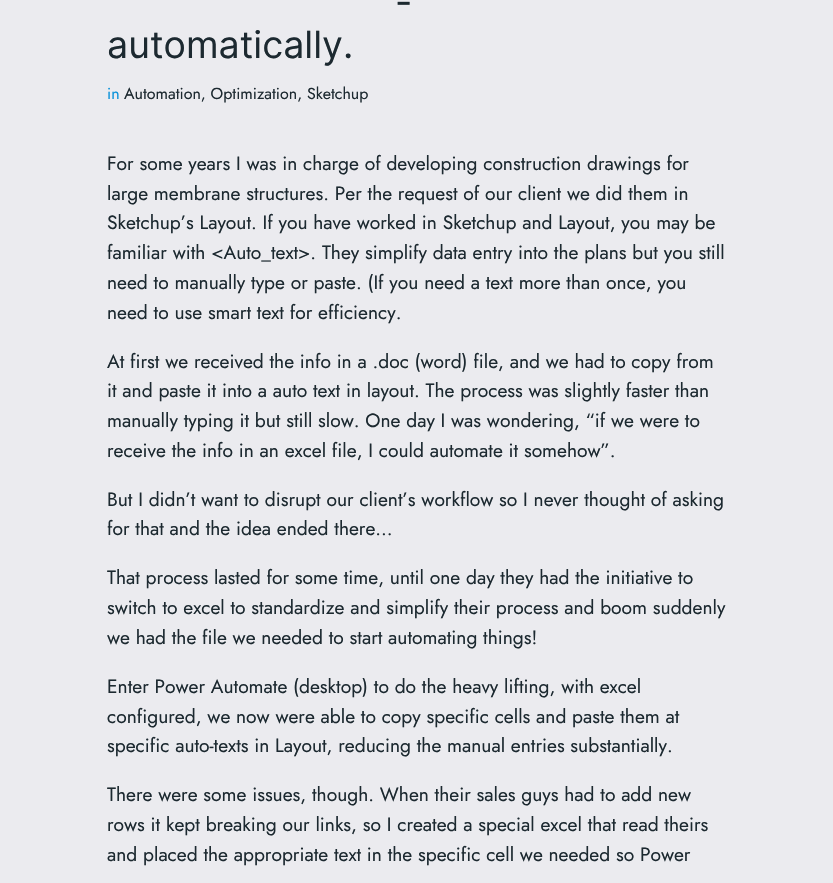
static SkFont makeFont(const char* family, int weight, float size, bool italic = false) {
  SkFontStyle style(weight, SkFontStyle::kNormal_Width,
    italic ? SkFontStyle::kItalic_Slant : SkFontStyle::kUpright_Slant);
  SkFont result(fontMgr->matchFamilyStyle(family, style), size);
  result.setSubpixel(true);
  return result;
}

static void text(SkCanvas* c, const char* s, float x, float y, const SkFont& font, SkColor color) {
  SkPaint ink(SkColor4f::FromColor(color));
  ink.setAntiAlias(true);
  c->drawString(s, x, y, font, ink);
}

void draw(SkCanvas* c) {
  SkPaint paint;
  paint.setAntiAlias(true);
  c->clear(0xffebebef);
  SkFont face1 = makeFont("Inter", 400, 37.5f);
  text(c, "-", 395, 15, face1, 0xff1c2930);
  text(c, "automatically.", 107, 58, face1, 0xff1c2930);
  SkFont face2 = makeFont("Jost", 400, 16);
  text(c, "in", 107, 99, face2, 0xff0b92da);
  text(c, "Automation, Optimization, Sketchup", 124, 99, face2, 0xff1c2930);
  SkFont face3 = makeFont("Jost", 400, 19.2f);
  text(c, "For some years I was in charge of developing construction drawings for", 107, 170, face3, 0xff1c2930);
  text(c, "large membrane structures. Per the request of our client we did them in", 107, 200, face3, 0xff1c2930);
  text(c, "Sketchup’s Layout. If you have worked in Sketchup and Layout, you may be", 107, 229, face3, 0xff1c2930);
  text(c, "familiar with <Auto_text>. They simplify data entry into the plans but you still", 107, 259, face3, 0xff1c2930);
  text(c, "need to manually type or paste. (If you need a text more than once, you", 107, 289, face3, 0xff1c2930);
  text(c, "need to use smart text for efficiency.", 107, 319, face3, 0xff1c2930);
  text(c, "At first we received the info in a .doc (word) file, and we had to copy from", 107, 368, face3, 0xff1c2930);
  text(c, "it and paste it into a auto text in layout. The process was slightly faster than", 107, 397, face3, 0xff1c2930);
  text(c, "manually typing it but still slow. One day I was wondering, “if we were to", 107, 427, face3, 0xff1c2930);
  text(c, "receive the info in an excel file, I could automate it somehow”.", 107, 457, face3, 0xff1c2930);
  text(c, "But I didn’t want to disrupt our client’s workflow so I never thought of asking", 107, 506, face3, 0xff1c2930);
  text(c, "for that and the idea ended there…", 107, 535, face3, 0xff1c2930);
  text(c, "That process lasted for some time, until one day they had the initiative to", 107, 584, face3, 0xff1c2930);
  text(c, "switch to excel to standardize and simplify their process and boom suddenly", 107, 614, face3, 0xff1c2930);
  text(c, "we had the file we needed to start automating things!", 107, 644, face3, 0xff1c2930);
  text(c, "Enter Power Automate (desktop) to do the heavy lifting, with excel", 107, 693, face3, 0xff1c2930);
  text(c, "configured, we now were able to copy specific cells and paste them at", 107, 723, face3, 0xff1c2930);
  text(c, "specific auto-texts in Layout, reducing the manual entries substantially.", 107, 752, face3, 0xff1c2930);
  text(c, "There were some issues, though. When their sales guys had to add new", 107, 801, face3, 0xff1c2930);
  text(c, "rows it kept breaking our links, so I created a special excel that read theirs", 107, 831, face3, 0xff1c2930);
  text(c, "and placed the appropriate text in the specific cell we needed so Power", 107, 861, face3, 0xff1c2930);
}
